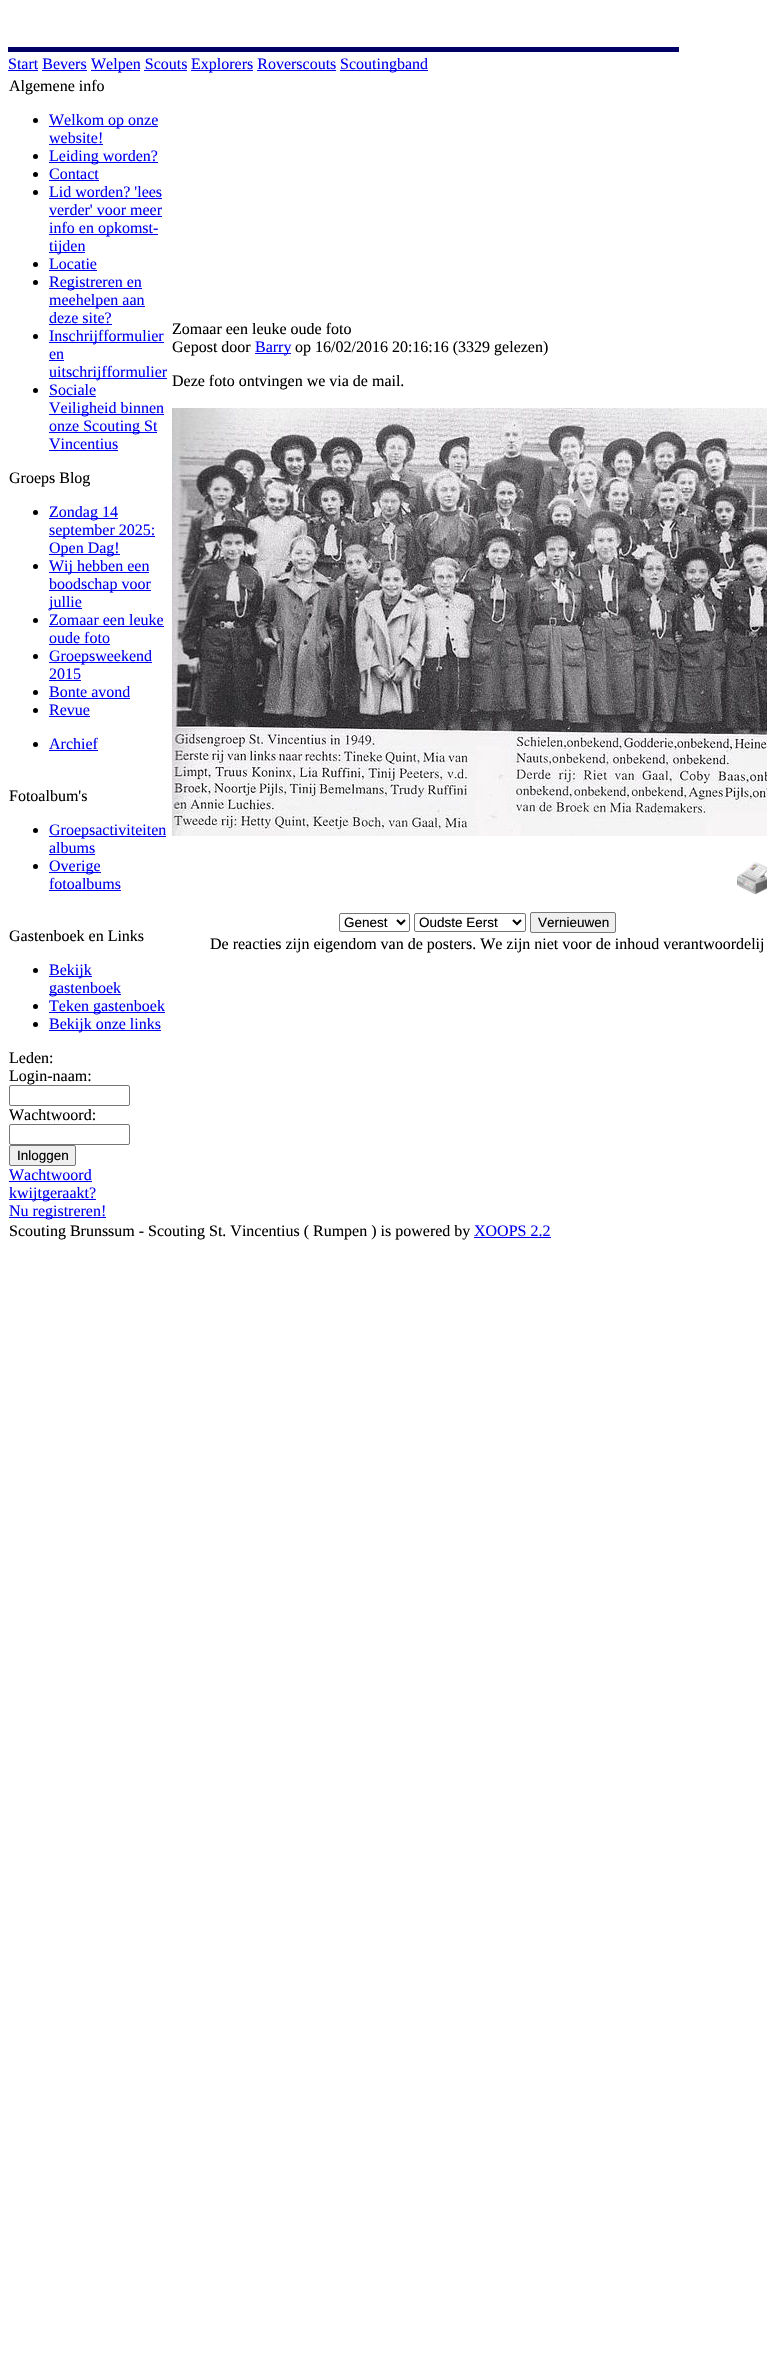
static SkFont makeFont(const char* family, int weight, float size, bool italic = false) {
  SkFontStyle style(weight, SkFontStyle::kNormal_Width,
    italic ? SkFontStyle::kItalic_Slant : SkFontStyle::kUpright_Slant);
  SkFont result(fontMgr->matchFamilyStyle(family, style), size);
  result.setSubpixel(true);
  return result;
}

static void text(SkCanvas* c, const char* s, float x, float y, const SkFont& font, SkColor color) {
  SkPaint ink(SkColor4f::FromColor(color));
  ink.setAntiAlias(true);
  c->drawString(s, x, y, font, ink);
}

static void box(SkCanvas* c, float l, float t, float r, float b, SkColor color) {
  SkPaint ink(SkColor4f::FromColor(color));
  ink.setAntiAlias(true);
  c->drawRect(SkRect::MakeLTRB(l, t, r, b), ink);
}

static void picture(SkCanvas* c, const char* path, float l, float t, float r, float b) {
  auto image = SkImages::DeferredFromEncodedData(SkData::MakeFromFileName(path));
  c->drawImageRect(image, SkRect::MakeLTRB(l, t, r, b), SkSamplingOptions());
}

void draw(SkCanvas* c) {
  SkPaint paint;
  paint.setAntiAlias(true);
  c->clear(0xffffffff);
  box(c, 8, 47, 679, 52, 0xff000066);
  SkFont face1 = makeFont("Liberation Serif", 400, 16);
  text(c, "Start Bevers", 8, 69, face1, 0xff0000ee);
  box(c, 8, 70, 38, 71, 0xff0000ee);
  box(c, 91, 70, 140, 71, 0xff0000ee);
  text(c, "Welpen Scouts", 91, 69, face1, 0xff0000ee);
  box(c, 191, 70, 253, 71, 0xff0000ee);
  text(c, "Explorers Roverscouts", 191, 69, face1, 0xff0000ee);
  box(c, 340, 70, 428, 71, 0xff0000ee);
  text(c, "Scoutingband", 340, 69, face1, 0xff0000ee);
  box(c, 42, 70, 87, 71, 0xff0000ee);
  box(c, 144, 70, 187, 71, 0xff0000ee);
  box(c, 257, 70, 336, 71, 0xff0000ee);
  text(c, "Algemene info", 9, 91, face1, 0xff000000);
  paint.setColor(0xff000000);
  c->drawCircle(35.5f, 120.5f, 2.5f, paint);
  box(c, 49, 126, 158, 127, 0xff0000ee);
  text(c, "Welkom op onze", 49, 125, face1, 0xff0000ee);
  text(c, "website!", 49, 143, face1, 0xff0000ee);
  box(c, 49, 144, 103, 145, 0xff0000ee);
  c->drawCircle(35.5f, 156.5f, 2.5f, paint);
  box(c, 49, 162, 158, 163, 0xff0000ee);
  text(c, "Leiding worden?", 49, 161, face1, 0xff0000ee);
  c->drawCircle(35.5f, 174.5f, 2.5f, paint);
  text(c, "Contact", 49, 179, face1, 0xff0000ee);
  box(c, 49, 180, 99, 181, 0xff0000ee);
  c->drawCircle(35.5f, 192.5f, 2.5f, paint);
  text(c, "Lid worden? 'lees", 49, 197, face1, 0xff0000ee);
  box(c, 49, 198, 162, 199, 0xff0000ee);
  text(c, "verder' voor meer", 49, 215, face1, 0xff0000ee);
  box(c, 49, 216, 162, 217, 0xff0000ee);
  box(c, 49, 234, 158, 235, 0xff0000ee);
  text(c, "info en opkomst-", 49, 233, face1, 0xff0000ee);
  box(c, 49, 252, 85, 253, 0xff0000ee);
  text(c, "tijden", 49, 251, face1, 0xff0000ee);
  c->drawCircle(35.5f, 264.5f, 2.5f, paint);
  text(c, "Locatie", 49, 269, face1, 0xff0000ee);
  box(c, 49, 270, 97, 271, 0xff0000ee);
  c->drawCircle(35.5f, 282.5f, 2.5f, paint);
  box(c, 49, 288, 142, 289, 0xff0000ee);
  text(c, "Registreren en", 49, 287, face1, 0xff0000ee);
  box(c, 49, 306, 145, 307, 0xff0000ee);
  text(c, "meehelpen aan", 49, 305, face1, 0xff0000ee);
  text(c, "deze site?", 49, 323, face1, 0xff0000ee);
  box(c, 49, 324, 112, 325, 0xff0000ee);
  c->drawCircle(35.5f, 336.5f, 2.5f, paint);
  box(c, 49, 342, 164, 343, 0xff0000ee);
  text(c, "Inschrijfformulier", 49, 341, face1, 0xff0000ee);
  text(c, "en", 49, 359, face1, 0xff0000ee);
  box(c, 49, 360, 64, 361, 0xff0000ee);
  box(c, 49, 378, 167, 379, 0xff0000ee);
  text(c, "uitschrijfformulier", 49, 377, face1, 0xff0000ee);
  c->drawCircle(35.5f, 390.5f, 2.5f, paint);
  text(c, "Sociale", 49, 395, face1, 0xff0000ee);
  box(c, 49, 396, 96, 397, 0xff0000ee);
  box(c, 49, 414, 164, 415, 0xff0000ee);
  text(c, "Veiligheid binnen", 49, 413, face1, 0xff0000ee);
  box(c, 49, 432, 157, 433, 0xff0000ee);
  text(c, "onze Scouting St", 49, 431, face1, 0xff0000ee);
  text(c, "Vincentius", 49, 449, face1, 0xff0000ee);
  box(c, 49, 450, 118, 451, 0xff0000ee);
  text(c, "Groeps Blog", 9, 483, face1, 0xff000000);
  c->drawCircle(35.5f, 512.5f, 2.5f, paint);
  box(c, 49, 518, 118, 519, 0xff0000ee);
  text(c, "Zondag 14", 49, 517, face1, 0xff0000ee);
  box(c, 49, 536, 155, 537, 0xff0000ee);
  text(c, "september 2025:", 49, 535, face1, 0xff0000ee);
  box(c, 49, 554, 120, 555, 0xff0000ee);
  text(c, "Open Dag!", 49, 553, face1, 0xff0000ee);
  c->drawCircle(35.5f, 566.5f, 2.5f, paint);
  box(c, 49, 572, 149, 573, 0xff0000ee);
  text(c, "Wij hebben een", 49, 571, face1, 0xff0000ee);
  box(c, 49, 590, 151, 591, 0xff0000ee);
  text(c, "boodschap voor", 49, 589, face1, 0xff0000ee);
  box(c, 49, 608, 82, 609, 0xff0000ee);
  text(c, "jullie", 49, 607, face1, 0xff0000ee);
  c->drawCircle(35.5f, 620.5f, 2.5f, paint);
  text(c, "Zomaar een leuke", 49, 625, face1, 0xff0000ee);
  box(c, 49, 626, 164, 627, 0xff0000ee);
  text(c, "oude foto", 49, 643, face1, 0xff0000ee);
  box(c, 49, 644, 110, 645, 0xff0000ee);
  c->drawCircle(35.5f, 656.5f, 2.5f, paint);
  box(c, 49, 662, 152, 663, 0xff0000ee);
  text(c, "Groepsweekend", 49, 661, face1, 0xff0000ee);
  text(c, "2015", 49, 679, face1, 0xff0000ee);
  box(c, 49, 680, 81, 681, 0xff0000ee);
  c->drawCircle(35.5f, 692.5f, 2.5f, paint);
  text(c, "Bonte avond", 49, 697, face1, 0xff0000ee);
  box(c, 49, 698, 130, 699, 0xff0000ee);
  c->drawCircle(35.5f, 710.5f, 2.5f, paint);
  text(c, "Revue", 49, 715, face1, 0xff0000ee);
  box(c, 49, 716, 90, 717, 0xff0000ee);
  c->drawCircle(35.5f, 744.5f, 2.5f, paint);
  text(c, "Archief", 49, 749, face1, 0xff0000ee);
  box(c, 49, 750, 98, 751, 0xff0000ee);
  text(c, "Fotoalbum's", 9, 801, face1, 0xff000000);
  c->drawCircle(35.5f, 830.5f, 2.5f, paint);
  box(c, 49, 836, 166, 837, 0xff0000ee);
  text(c, "Groepsactiviteiten", 49, 835, face1, 0xff0000ee);
  text(c, "albums", 49, 853, face1, 0xff0000ee);
  box(c, 49, 854, 95, 855, 0xff0000ee);
  c->drawCircle(35.5f, 866.5f, 2.5f, paint);
  box(c, 49, 872, 101, 873, 0xff0000ee);
  text(c, "Overige", 49, 871, face1, 0xff0000ee);
  text(c, "fotoalbums", 49, 889, face1, 0xff0000ee);
  box(c, 49, 890, 121, 891, 0xff0000ee);
  text(c, "Gastenboek en Links", 9, 941, face1, 0xff000000);
  c->drawCircle(35.5f, 970.5f, 2.5f, paint);
  box(c, 49, 976, 92, 977, 0xff0000ee);
  text(c, "Bekijk", 49, 975, face1, 0xff0000ee);
  box(c, 49, 994, 121, 995, 0xff0000ee);
  text(c, "gastenboek", 49, 993, face1, 0xff0000ee);
  c->drawCircle(35.5f, 1006.5f, 2.5f, paint);
  box(c, 49, 1012, 165, 1013, 0xff0000ee);
  text(c, "Teken gastenboek", 49, 1011, face1, 0xff0000ee);
  c->drawCircle(35.5f, 1024.5f, 2.5f, paint);
  box(c, 49, 1030, 161, 1031, 0xff0000ee);
  text(c, "Bekijk onze links", 49, 1029, face1, 0xff0000ee);
  text(c, "Leden:", 9, 1063, face1, 0xff000000);
  text(c, "Login-naam:", 9, 1081, face1, 0xff000000);
  paint.setStyle(SkPaint::kStroke_Style);
  paint.setStrokeWidth(1);
  paint.setColor(0xff767676);
  c->drawRoundRect(SkRect::MakeLTRB(9.5f, 1085.5f, 129.5f, 1105.5f), 1.5f, 1.5f, paint);
  text(c, "Wachtwoord:", 9, 1120, face1, 0xff000000);
  c->drawRoundRect(SkRect::MakeLTRB(9.5f, 1124.5f, 129.5f, 1144.5f), 1.5f, 1.5f, paint);
  paint.setStyle(SkPaint::kFill_Style);
  paint.setColor(0xffefefef);
  c->drawRoundRect(SkRect::MakeLTRB(9.5f, 1145.5f, 75.5f, 1165.5f), 1.5f, 1.5f, paint);
  paint.setStyle(SkPaint::kStroke_Style);
  paint.setColor(0xff767676);
  c->drawRoundRect(SkRect::MakeLTRB(9.5f, 1145.5f, 75.5f, 1165.5f), 1.5f, 1.5f, paint);
  SkFont face2 = makeFont("Liberation Sans", 400, 13.5f);
  text(c, "Inloggen", 17, 1160, face2, 0xff000000);
  text(c, "Wachtwoord", 9, 1180, face1, 0xff0000ee);
  box(c, 9, 1181, 92, 1182, 0xff0000ee);
  box(c, 9, 1199, 96, 1200, 0xff0000ee);
  text(c, "kwijtgeraakt?", 9, 1198, face1, 0xff0000ee);
  box(c, 9, 1217, 106, 1218, 0xff0000ee);
  text(c, "Nu registreren!", 9, 1216, face1, 0xff0000ee);
  text(c, "Zomaar een leuke oude foto", 172, 334, face1, 0xff000000);
  text(c, "Gepost door", 172, 352, face1, 0xff000000);
  box(c, 255, 353, 291, 354, 0xff0000ee);
  text(c, "Barry", 255, 352, face1, 0xff0000ee);
  text(c, "op 16/02/2016 20:16:16 (3329 gelezen)", 295, 352, face1, 0xff000000);
  text(c, "Deze foto ontvingen we via de mail.", 172, 386, face1, 0xff000000);
  picture(c, "img_01.png", 172, 408, 767, 836);
  picture(c, "img_02.png", 737, 862, 767, 894);
  c->drawRoundRect(SkRect::MakeLTRB(339.5f, 913.5f, 409.5f, 931.5f), 1.5f, 1.5f, paint);
  paint.setStrokeWidth(2);
  paint.setColor(0xff000000);
  c->drawPath(SkPathBuilder().moveTo(397, 920).lineTo(401, 924).lineTo(405, 920).detach(), paint);
  text(c, "Genest", 344, 927, face2, 0xff000000);
  paint.setStrokeWidth(1);
  paint.setColor(0xff767676);
  c->drawRoundRect(SkRect::MakeLTRB(414.5f, 913.5f, 525.5f, 931.5f), 1.5f, 1.5f, paint);
  paint.setStrokeWidth(2);
  paint.setColor(0xff000000);
  c->drawPath(SkPathBuilder().moveTo(513, 920).lineTo(517, 924).lineTo(521, 920).detach(), paint);
  text(c, "Oudste Eerst", 419, 927, face2, 0xff000000);
  paint.setStyle(SkPaint::kFill_Style);
  paint.setColor(0xffefefef);
  c->drawRoundRect(SkRect::MakeLTRB(530.5f, 912.5f, 615.5f, 932.5f), 1.5f, 1.5f, paint);
  paint.setStyle(SkPaint::kStroke_Style);
  paint.setStrokeWidth(1);
  paint.setColor(0xff767676);
  c->drawRoundRect(SkRect::MakeLTRB(530.5f, 912.5f, 615.5f, 932.5f), 1.5f, 1.5f, paint);
  text(c, "Vernieuwen", 538, 927, face2, 0xff000000);
  text(c, "De reacties zijn eigendom van de posters. We zijn niet voor de inhoud verantwoordelij", 210, 949, face1, 0xff000000);
  text(c, "Scouting Brunssum - Scouting St. Vincentius ( Rumpen ) is powered by", 9, 1236, face1, 0xff000000);
  text(c, "XOOPS 2.2", 474, 1236, face1, 0xff0000ee);
  box(c, 474, 1237, 551, 1238, 0xff0000ee);
}
